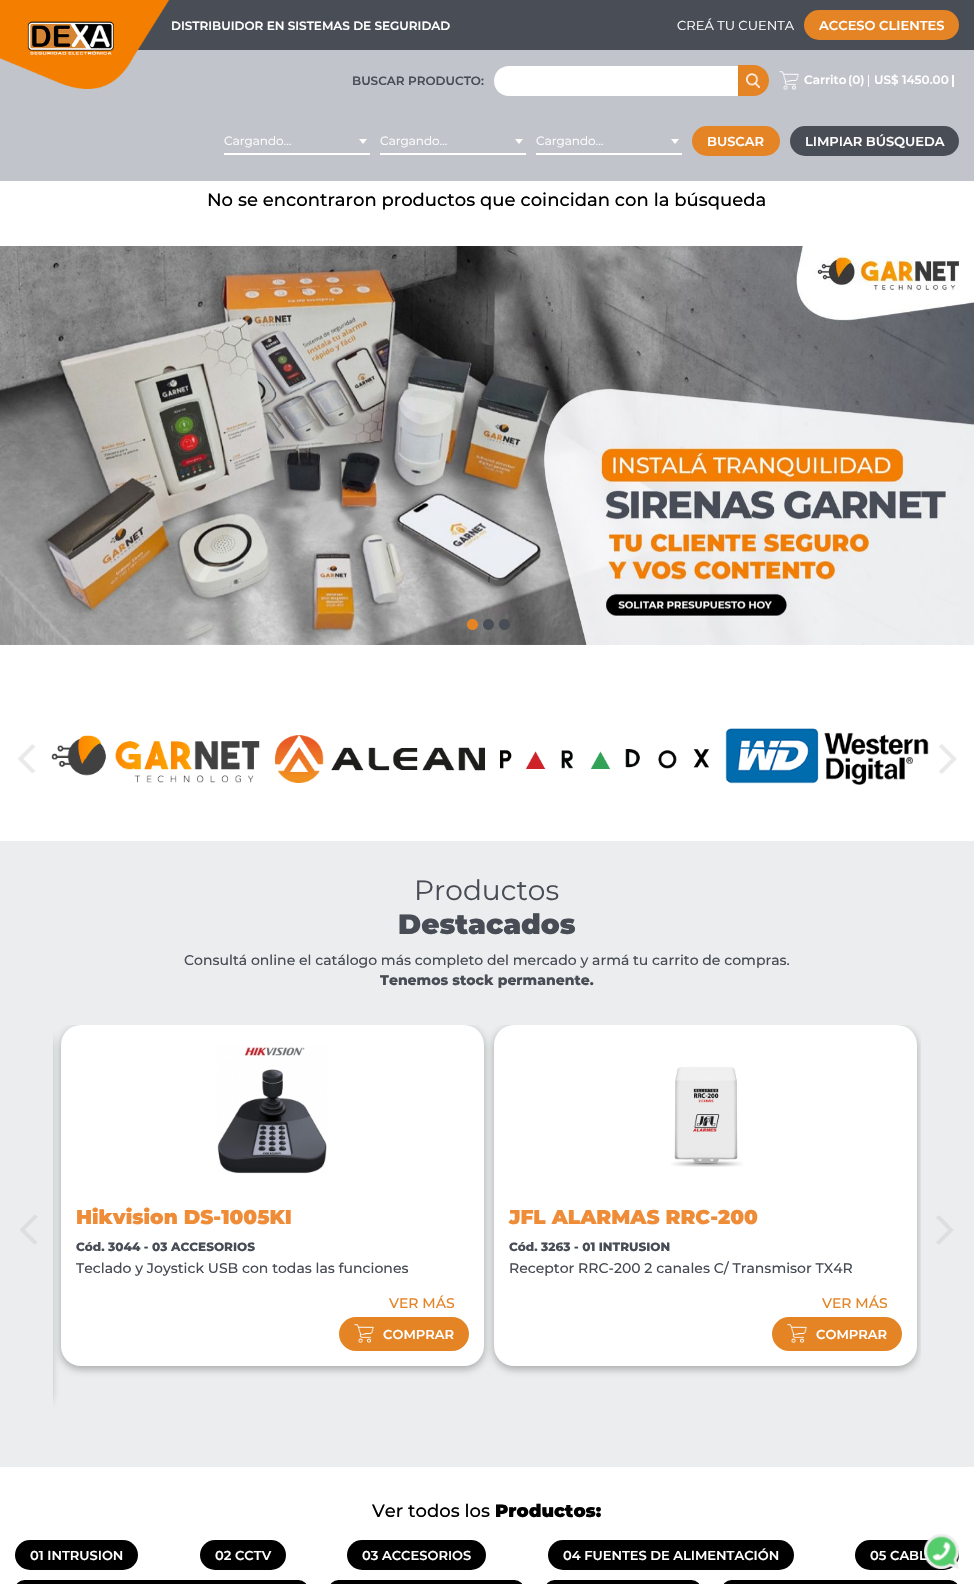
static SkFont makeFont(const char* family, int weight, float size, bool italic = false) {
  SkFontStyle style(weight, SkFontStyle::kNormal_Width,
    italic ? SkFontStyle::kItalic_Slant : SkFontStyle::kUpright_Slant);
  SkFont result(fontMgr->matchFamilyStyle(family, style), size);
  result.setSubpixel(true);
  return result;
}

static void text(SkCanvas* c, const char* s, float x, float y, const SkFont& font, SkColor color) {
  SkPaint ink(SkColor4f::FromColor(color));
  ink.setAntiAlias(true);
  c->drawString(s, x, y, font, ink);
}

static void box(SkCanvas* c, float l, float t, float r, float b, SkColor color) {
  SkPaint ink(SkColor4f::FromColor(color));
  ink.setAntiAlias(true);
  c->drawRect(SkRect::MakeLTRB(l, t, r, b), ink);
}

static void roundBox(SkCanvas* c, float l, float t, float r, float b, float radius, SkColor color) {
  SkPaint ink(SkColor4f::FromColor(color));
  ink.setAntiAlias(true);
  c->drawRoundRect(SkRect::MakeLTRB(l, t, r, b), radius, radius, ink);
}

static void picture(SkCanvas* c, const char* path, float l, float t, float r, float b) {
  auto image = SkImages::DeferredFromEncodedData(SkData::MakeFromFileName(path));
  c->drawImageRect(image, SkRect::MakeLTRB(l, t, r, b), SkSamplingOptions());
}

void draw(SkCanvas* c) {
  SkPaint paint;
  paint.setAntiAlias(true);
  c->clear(0xffffffff);
  box(c, 137, 0, 974, 50, 0xff494d56);
  SkFont face1 = makeFont("Montserrat", 600, 12);
  text(c, "DISTRIBUIDOR EN SISTEMAS DE SEGURIDAD", 171, 30, face1, 0xffffffff);
  SkFont face2 = makeFont("Montserrat", 400, 13);
  text(c, "CREÁ TU CUENTA", 677, 30, face2, 0xffffffff);
  roundBox(c, 804, 10, 959, 40, 15, 0xffe48425);
  SkFont face3 = makeFont("Montserrat", 600, 13);
  text(c, "ACCESO CLIENTES", 819, 30, face3, 0xffffffff);
  box(c, 0, 50, 974, 181, 0xffc1c4cb);
  picture(c, "img_01.png", 0, 0, 170, 89);
  text(c, "BUSCAR PRODUCTO:", 352, 85, face1, 0xff474c55);
  paint.setColor(0xffffffff);
  c->drawPath(SkPathBuilder().moveTo(509, 66).lineTo(738, 66).lineTo(738, 96).lineTo(509, 96).cubicTo(500.5f, 96, 494, 89.5f, 494, 81).cubicTo(494, 72.5f, 500.5f, 66, 509, 66).close().detach(), paint);
  paint.setColor(0xffe48425);
  c->drawPath(SkPathBuilder().moveTo(738, 65).lineTo(753.5f, 65).cubicTo(762, 65, 769, 72, 769, 80.5f).cubicTo(769, 89, 762, 96, 753.5f, 96).lineTo(738, 96).close().detach(), paint);
  picture(c, "img_02.png", 746, 73, 760, 88);
  picture(c, "img_03.png", 779, 71, 799, 90);
  text(c, "Carrito", 804, 84, face1, 0xffffffff);
  text(c, "(0)", 848, 84, face1, 0xffffffff);
  box(c, 868, 75, 869, 87, 0xffffffff);
  text(c, "US$ 1450.00", 874, 84, face1, 0xffffffff);
  box(c, 952, 75, 954, 87, 0xffffffff);
  box(c, 224, 153, 370, 155, 0xffffffff);
  SkFont face4 = makeFont("Montserrat", 400, 12);
  text(c, "Cargando...", 224, 145, face4, 0xffffffff);
  paint.setColor(0xffffffff);
  c->drawPath(SkPathBuilder().moveTo(359, 139).lineTo(367, 139).lineTo(363, 144).close().detach(), paint);
  box(c, 380, 153, 526, 155, 0xffffffff);
  text(c, "Cargando...", 380, 145, face4, 0xffffffff);
  c->drawPath(SkPathBuilder().moveTo(515, 139).lineTo(523, 139).lineTo(519, 144).close().detach(), paint);
  box(c, 536, 153, 682, 155, 0xffffffff);
  text(c, "Cargando...", 536, 145, face4, 0xffffffff);
  c->drawPath(SkPathBuilder().moveTo(671, 139).lineTo(679, 139).lineTo(675, 144).close().detach(), paint);
  roundBox(c, 692, 126, 780, 156, 15, 0xffe48425);
  text(c, "BUSCAR", 707, 146, face3, 0xffffffff);
  roundBox(c, 790, 126, 959, 156, 15, 0xff494d56);
  text(c, "LIMPIAR BÚSQUEDA", 805, 146, face3, 0xffffffff);
  SkFont face5 = makeFont("Montserrat", 500, 18);
  text(c, "No se encontraron productos que coincidan con la búsqueda", 207, 206, face5, 0xff000000);
  picture(c, "img_04.png", 0, 246, 974, 645);
  picture(c, "img_05.png", 466, 619, 478, 630);
  picture(c, "img_06.png", 483, 619, 494, 630);
  picture(c, "img_07.png", 499, 619, 510, 630);
  picture(c, "img_08.png", 18, 744, 36, 773);
  picture(c, "img_09.png", 51, 735, 260, 783);
  picture(c, "img_10.png", 275, 735, 485, 783);
  picture(c, "img_11.png", 500, 749, 709, 769);
  picture(c, "img_12.png", 725, 728, 929, 785);
  picture(c, "img_13.png", 939, 744, 957, 774);
  box(c, 0, 841, 974, 1467, 0xffecedef);
  SkFont face6 = makeFont("Montserrat", 400, 28);
  text(c, "Productos", 414, 900, face6, 0xff474c55);
  SkFont face7 = makeFont("Montserrat", 900, 28);
  text(c, "Destacados", 398, 934, face7, 0xff474c55);
  SkFont face8 = makeFont("Montserrat", 500, 14);
  text(c, "Consultá online el catálogo más completo del mercado y armá tu carrito de compras.", 184, 965, face8, 0xff474c55);
  SkFont face9 = makeFont("Montserrat", 800, 14);
  text(c, "Tenemos stock permanente.", 380, 985, face9, 0xff474c55);
  picture(c, "img_14.png", 20, 1215, 38, 1245);
  c->save();
  c->clipRect(SkRect::MakeLTRB(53, 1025, 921, 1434));
  paint.setColor(0x4d010200);
  paint.setMaskFilter(SkMaskFilter::MakeBlur(kNormal_SkBlurStyle, 4));
  c->drawRoundRect(SkRect::MakeLTRB(-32, 1028, 51, 1412), 20, 20, paint);
  paint.setMaskFilter(nullptr);
  paint.setMaskFilter(SkMaskFilter::MakeBlur(kNormal_SkBlurStyle, 4));
  c->drawRoundRect(SkRect::MakeLTRB(61, 1028, 484, 1369), 20, 20, paint);
  paint.setMaskFilter(nullptr);
  c->restore();
  roundBox(c, 61, 1025, 484, 1366, 20, 0xffffffff);
  picture(c, "img_15.png", 217, 1046, 327, 1174);
  SkFont face10 = makeFont("Montserrat", 900, 20);
  text(c, "Hikvision DS-1005KI", 76, 1224, face10, 0xffef8c37);
  SkFont face11 = makeFont("Montserrat", 800, 12);
  text(c, "Cód. 3044 - 03 ACCESORIOS", 76, 1251, face11, 0xff474c55);
  text(c, "Teclado y Joystick USB con todas las funciones", 76, 1273, face8, 0xff474c55);
  text(c, "VER MÁS", 389, 1308, face8, 0xffe48425);
  roundBox(c, 339, 1317, 469, 1351, 17, 0xffe48425);
  picture(c, "img_16.png", 354, 1324, 374, 1343);
  text(c, "COMPRAR", 383, 1339, face3, 0xffffffff);
  c->save();
  c->clipRect(SkRect::MakeLTRB(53, 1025, 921, 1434));
  paint.setMaskFilter(SkMaskFilter::MakeBlur(kNormal_SkBlurStyle, 4));
  c->drawRoundRect(SkRect::MakeLTRB(494, 1028, 917, 1369), 20, 20, paint);
  paint.setMaskFilter(nullptr);
  c->restore();
  roundBox(c, 494, 1025, 917, 1366, 20, 0xffffffff);
  picture(c, "img_17.png", 671, 1067, 743, 1167);
  text(c, "JFL ALARMAS RRC-200", 509, 1224, face10, 0xffef8c37);
  text(c, "Cód. 3263 - 01 INTRUSION", 509, 1251, face11, 0xff474c55);
  text(c, "Receptor RRC-200 2 canales C/ Transmisor TX4R", 509, 1273, face8, 0xff474c55);
  text(c, "VER MÁS", 822, 1308, face8, 0xffe48425);
  roundBox(c, 772, 1317, 902, 1351, 17, 0xffe48425);
  picture(c, "img_16.png", 787, 1324, 807, 1343);
  text(c, "COMPRAR", 816, 1339, face3, 0xffffffff);
  picture(c, "img_18.png", 936, 1215, 954, 1245);
  text(c, "Ver todos los", 372, 1517, face5, 0xff000000);
  SkFont face12 = makeFont("Montserrat", 900, 18);
  text(c, "Productos:", 495, 1517, face12, 0xff000000);
  roundBox(c, 15, 1540, 138, 1570, 15, 0xff000000);
  text(c, "01 INTRUSION", 30, 1560, face3, 0xffffffff);
  roundBox(c, 200, 1540, 286, 1570, 15, 0xff000000);
  text(c, "02 CCTV", 215, 1560, face3, 0xffffffff);
  roundBox(c, 347, 1540, 486, 1570, 15, 0xff000000);
  text(c, "03 ACCESORIOS", 362, 1560, face3, 0xffffffff);
  roundBox(c, 548, 1540, 794, 1570, 15, 0xff000000);
  text(c, "04 FUENTES DE ALIMENTACIÓN", 563, 1560, face3, 0xffffffff);
  roundBox(c, 855, 1540, 959, 1570, 15, 0xff000000);
  text(c, "05 CABL", 870, 1560, face3, 0xffffffff);
  roundBox(c, 15, 1580, 308, 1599, 15, 0xff000000);
  roundBox(c, 329, 1580, 524, 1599, 15, 0xff000000);
  roundBox(c, 545, 1580, 701, 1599, 15, 0xff000000);
  roundBox(c, 722, 1580, 959, 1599, 15, 0xff000000);
  picture(c, "img_19.png", 924, 1534, 959, 1569);
}
